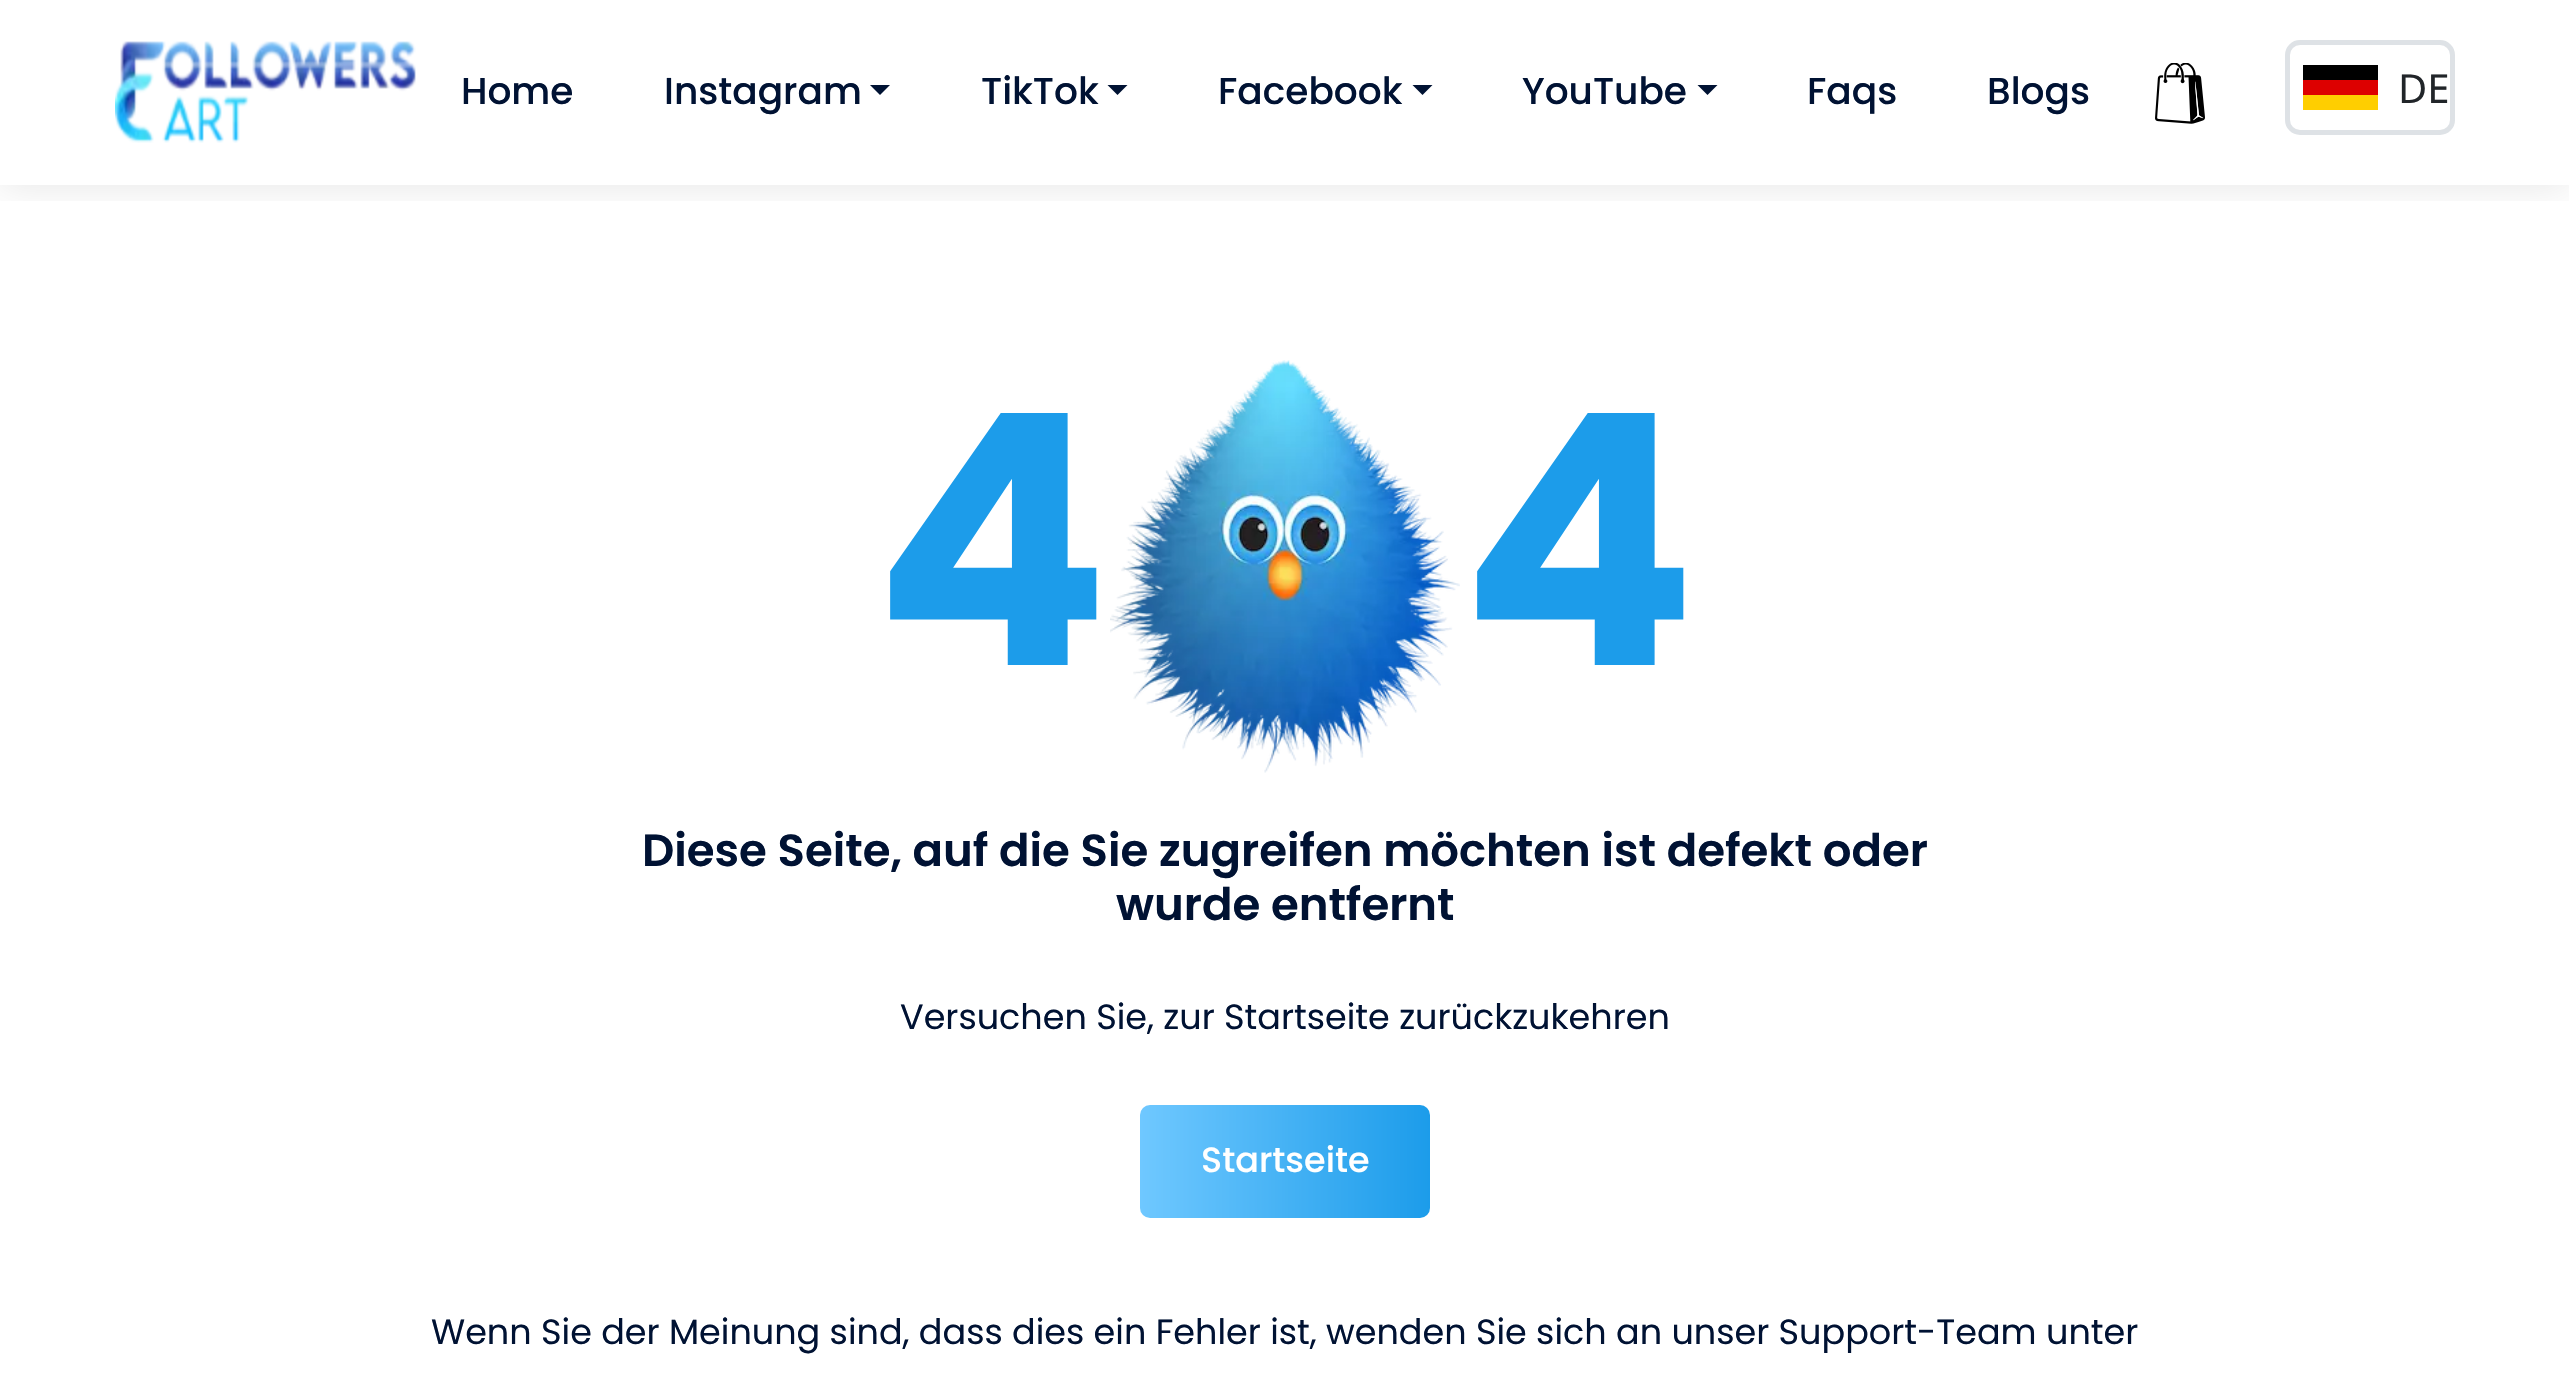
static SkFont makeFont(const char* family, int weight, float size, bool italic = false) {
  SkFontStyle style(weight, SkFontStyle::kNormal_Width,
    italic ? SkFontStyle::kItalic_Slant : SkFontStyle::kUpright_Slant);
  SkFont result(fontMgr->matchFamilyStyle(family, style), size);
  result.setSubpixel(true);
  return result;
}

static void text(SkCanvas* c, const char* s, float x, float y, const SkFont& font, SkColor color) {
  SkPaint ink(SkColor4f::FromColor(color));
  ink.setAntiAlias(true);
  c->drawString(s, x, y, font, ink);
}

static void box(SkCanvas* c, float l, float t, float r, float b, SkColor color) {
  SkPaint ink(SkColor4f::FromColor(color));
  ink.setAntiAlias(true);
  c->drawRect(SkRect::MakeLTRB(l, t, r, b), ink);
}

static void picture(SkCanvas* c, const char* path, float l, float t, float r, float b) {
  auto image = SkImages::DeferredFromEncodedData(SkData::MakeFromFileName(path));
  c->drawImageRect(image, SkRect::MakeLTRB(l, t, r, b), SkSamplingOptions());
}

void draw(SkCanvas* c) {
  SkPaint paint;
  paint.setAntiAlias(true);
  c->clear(0xffffffff);
  c->save();
  c->clipRect(SkRect::MakeLTRB(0, 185, 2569, 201));
  paint.setColor(0x1a000000);
  paint.setMaskFilter(SkMaskFilter::MakeBlur(kNormal_SkBlurStyle, 19));
  c->drawRect(SkRect::MakeLTRB(0, 0, 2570, 185), paint);
  paint.setMaskFilter(nullptr);
  c->restore();
  picture(c, "img_01.png", 115, 41, 416, 143);
  SkFont face1 = makeFont("Poppins", 500, 37.5f);
  text(c, "Home", 461, 104, face1, 0xff001233);
  text(c, "Instagram", 664, 104, face1, 0xff001233);
  paint.setColor(0xff001233);
  c->drawPath(SkPathBuilder().moveTo(870, 85).lineTo(890, 85).lineTo(880, 95).close().detach(), paint);
  text(c, "TikTok", 981, 104, face1, 0xff001233);
  c->drawPath(SkPathBuilder().moveTo(1107.5f, 85).lineTo(1127.5f, 85).lineTo(1117.5f, 95).close().detach(), paint);
  text(c, "Facebook", 1218, 104, face1, 0xff001233);
  c->drawPath(SkPathBuilder().moveTo(1412.5f, 85).lineTo(1432.5f, 85).lineTo(1422.5f, 95).close().detach(), paint);
  text(c, "YouTube", 1522, 104, face1, 0xff001233);
  c->drawPath(SkPathBuilder().moveTo(1697.5f, 85).lineTo(1717.5f, 85).lineTo(1707.5f, 95).close().detach(), paint);
  text(c, "Faqs", 1807, 104, face1, 0xff001233);
  text(c, "Blogs", 1987, 104, face1, 0xff001233);
  picture(c, "img_02.png", 2155, 63, 2205, 124);
  paint.setStyle(SkPaint::kStroke_Style);
  paint.setStrokeWidth(5);
  paint.setColor(0xffdee2e6);
  c->drawRoundRect(SkRect::MakeLTRB(2287.5f, 42.5f, 2452.5f, 132.5f), 12.5f, 12.5f, paint);
  box(c, 2303, 65, 2378, 80, 0xff000000);
  box(c, 2303, 80, 2378, 95, 0xffdd0000);
  box(c, 2303, 95, 2378, 110, 0xffffce00);
  SkFont face2 = makeFont("Noto Sans", 400, 40);
  text(c, "DE", 2398, 103, face2, 0xff212529);
  SkFont face3 = makeFont("Poppins", 700, 350);
  text(c, "4", 873, 665, face3, 0xff1c9cea);
  picture(c, "img_03.png", 1110, 360, 1460, 773);
  text(c, "4", 1460, 665, face3, 0xff1c9cea);
  SkFont face4 = makeFont("Poppins", 600, 45);
  text(c, "Diese Seite, auf die Sie zugreifen möchten ist defekt oder", 642, 866, face4, 0xff001233);
  text(c, "wurde entfernt", 1116, 920, face4, 0xff001233);
  SkFont face5 = makeFont("Poppins", 400, 35);
  text(c, "Versuchen Sie, zur Startseite zurückzukehren", 900, 1029, face5, 0xff001233);
  paint.setStyle(SkPaint::kFill_Style);
  {
    const SkColor colors[] = {0xff6fc8ff, 0xff1c9cea};
    const float stops[] = {0, 1};
    const SkPoint ends[] = {{1140, 1161}, {1430, 1161}};
    paint.setShader(SkGradientShader::MakeLinear(ends, colors, stops, 2, SkTileMode::kClamp));
    paint.setAlpha(255);
  }
  c->drawRoundRect(SkRect::MakeLTRB(1140, 1105, 1430, 1218), 10, 10, paint);
  SkFont face6 = makeFont("Poppins", 500, 35);
  text(c, "Startseite", 1201, 1172, face6, 0xffffffff);
  text(c, "Wenn Sie der Meinung sind, dass dies ein Fehler ist, wenden Sie sich an unser Support-Team unter", 431, 1344, face5, 0xff001233);
}
